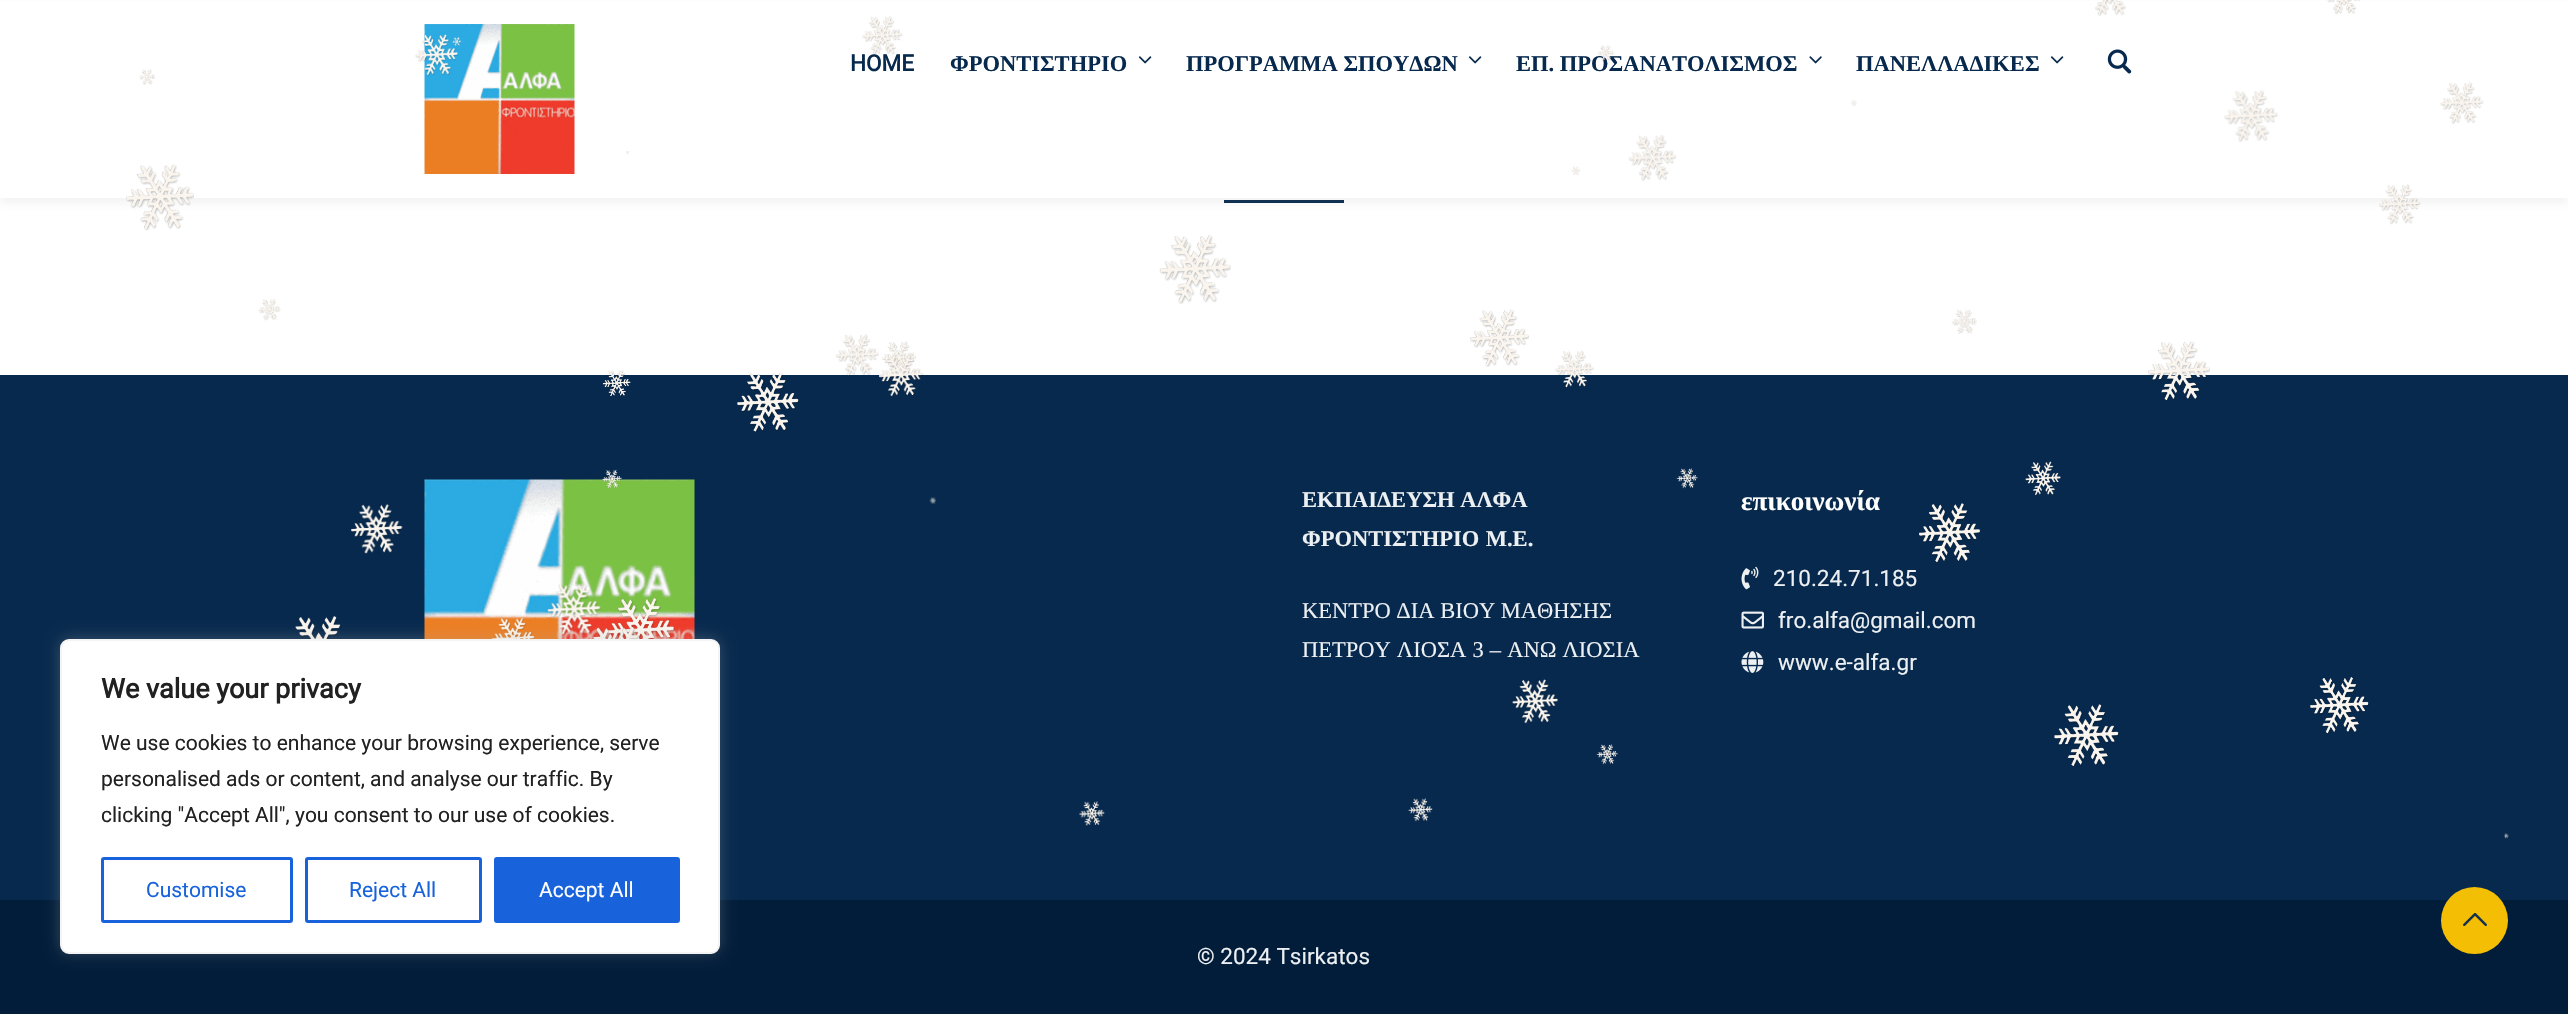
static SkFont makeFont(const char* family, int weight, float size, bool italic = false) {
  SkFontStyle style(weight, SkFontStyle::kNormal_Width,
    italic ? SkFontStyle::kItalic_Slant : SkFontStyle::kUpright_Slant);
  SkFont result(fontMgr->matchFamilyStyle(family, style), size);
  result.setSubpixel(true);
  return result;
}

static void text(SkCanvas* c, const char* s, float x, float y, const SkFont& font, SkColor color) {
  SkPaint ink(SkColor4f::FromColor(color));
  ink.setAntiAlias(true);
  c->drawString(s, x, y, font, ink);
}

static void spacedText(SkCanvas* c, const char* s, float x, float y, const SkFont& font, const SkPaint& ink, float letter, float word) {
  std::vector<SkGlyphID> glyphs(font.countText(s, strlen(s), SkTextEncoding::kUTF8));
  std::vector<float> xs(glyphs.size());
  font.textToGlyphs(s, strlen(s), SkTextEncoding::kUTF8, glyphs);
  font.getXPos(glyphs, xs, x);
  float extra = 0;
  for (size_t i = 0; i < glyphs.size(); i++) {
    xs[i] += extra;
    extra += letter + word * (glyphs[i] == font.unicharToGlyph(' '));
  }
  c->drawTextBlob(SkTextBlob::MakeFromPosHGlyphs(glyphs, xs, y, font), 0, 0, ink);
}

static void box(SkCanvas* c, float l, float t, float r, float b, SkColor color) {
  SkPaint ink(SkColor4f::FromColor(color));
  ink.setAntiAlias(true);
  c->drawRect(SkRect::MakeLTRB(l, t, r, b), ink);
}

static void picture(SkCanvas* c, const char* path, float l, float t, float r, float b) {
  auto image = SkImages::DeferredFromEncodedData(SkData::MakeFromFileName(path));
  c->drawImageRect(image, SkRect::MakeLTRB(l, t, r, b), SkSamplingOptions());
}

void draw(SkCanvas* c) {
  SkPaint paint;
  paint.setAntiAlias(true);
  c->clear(0xffffffff);
  box(c, 1224, 200, 1344, 203, 0xff07294d);
  paint.setColor(0x1a808080);
  paint.setMaskFilter(SkMaskFilter::MakeBlur(kNormal_SkBlurStyle, 4.5f));
  c->drawRect(SkRect::MakeLTRB(0, 5, 2568, 203), paint);
  paint.setMaskFilter(nullptr);
  box(c, 0, 1, 2568, 198, 0xffffffff);
  picture(c, "img_01.png", 2095, 0, 2126, 16);
  picture(c, "img_02.png", 2327, 0, 2360, 15);
  picture(c, "img_08.png", 424, 24, 575, 174);
  picture(c, "img_03.png", 415, 34, 459, 76);
  SkFont face1 = makeFont("Roboto", 700, 22.5f);
  text(c, "HOME", 850, 71, face1, 0xff07294d);
  picture(c, "img_04.png", 862, 16, 903, 55);
  picture(c, "img_05.png", 452, 37, 462, 46);
  SkFont face2 = makeFont("Liberation Serif", 700, 22.5f);
  text(c, "ΕΠ. ΠΡΟΣΑΝΑΤΟΛΙΣΜΟΣ", 1516, 71, face2, 0xff07294d);
  picture(c, "img_06.png", 1597, 45, 1614, 61);
  picture(c, "img_07.png", 139, 69, 155, 85);
  text(c, "ΦΡΟΝΤΙΣΤΗΡΙΟ", 950, 71, face2, 0xff07294d);
  picture(c, "img_09.png", 1138, 56, 1152, 64);
  text(c, "ΠΡΟΓΡΑΜΜΑ ΣΠΟΥΔΩΝ", 1186, 71, face2, 0xff07294d);
  picture(c, "img_09.png", 1468, 56, 1482, 64);
  picture(c, "img_10.png", 1809, 56, 1822, 64);
  text(c, "ΠΑΝΕΛΛΑΔΙΚΕΣ", 1856, 71, face2, 0xff07294d);
  picture(c, "img_09.png", 2050, 56, 2064, 64);
  picture(c, "img_11.png", 2107, 49, 2132, 74);
  box(c, 0, 375, 2568, 900, 0xff07294d);
  picture(c, "img_12.png", 424, 479, 695, 639);
  text(c, "ΕΚΠΑΙΔΕΥΣΗ ΑΛΦΑ", 1302, 507, face2, 0xffedf0f2);
  paint.setColor(0xffedf0f2);
  spacedText(c, "ΦΡΟΝΤΙΣΤΗΡΙΟ Μ.Ε.", 1302, 546, face2, paint, 0, 1);
  SkFont face3 = makeFont("Liberation Serif", 400, 22.5f);
  text(c, "ΚΕΝΤΡΟ ΔΙΑ ΒΙΟΥ ΜΑΘΗΣΗΣ", 1302, 618, face3, 0xffedf0f2);
  spacedText(c, "ΠΕΤΡΟΥ ΛΙΟΣΑ 3 – ΑΝΩ ΛIΟΣΙΑ", 1302, 657, face3, paint, 0, 0.5f);
  SkFont face4 = makeFont("Liberation Serif", 700, 27);
  text(c, "επικοινωνία", 1741, 510, face4, 0xffffffff);
  picture(c, "img_13.png", 1741, 566, 1759, 590);
  SkFont face5 = makeFont("Roboto", 400, 22.5f);
  text(c, "210.24.71.185", 1773, 586, face5, 0xffedf0f2);
  picture(c, "img_14.png", 1741, 611, 1764, 629);
  text(c, "fro.alfa@gmail.com", 1778, 628, face5, 0xffedf0f2);
  picture(c, "img_15.png", 1741, 651, 1764, 673);
  text(c, "www.e-alfa.gr", 1778, 670, face5, 0xffedf0f2);
  box(c, 0, 900, 2568, 1014, 0xff021d3a);
  text(c, "© 2024 Tsirkatos", 1197, 964, face5, 0xffedf0f2);
  picture(c, "img_16.png", 1851, 100, 1857, 106);
  picture(c, "img_17.png", 2224, 90, 2278, 142);
  picture(c, "img_18.png", 2440, 82, 2484, 124);
  box(c, 626, 151, 629, 154, 0xfff3f0ed);
  picture(c, "img_19.png", 1628, 135, 1677, 181);
  picture(c, "img_20.png", 126, 164, 194, 231);
  picture(c, "img_21.png", 1571, 166, 1580, 175);
  picture(c, "img_22.png", 2379, 184, 2421, 225);
  picture(c, "img_23.png", 1159, 235, 1231, 304);
  picture(c, "img_24.png", 258, 299, 281, 321);
  picture(c, "img_25.png", 1470, 309, 1529, 367);
  picture(c, "img_26.png", 1951, 309, 1977, 334);
  picture(c, "img_27.png", 835, 334, 879, 376);
  picture(c, "img_28.png", 882, 341, 916, 374);
  picture(c, "img_29.png", 1555, 350, 1594, 388);
  picture(c, "img_30.png", 2148, 341, 2210, 401);
  picture(c, "img_31.png", 603, 369, 631, 397);
  picture(c, "img_32.png", 737, 372, 799, 433);
  picture(c, "img_33.png", 879, 354, 924, 397);
  picture(c, "img_34.png", 602, 469, 622, 489);
  picture(c, "img_35.png", 1676, 468, 1698, 489);
  picture(c, "img_36.png", 2025, 461, 2061, 496);
  picture(c, "img_37.png", 929, 497, 936, 504);
  picture(c, "img_38.png", 351, 504, 403, 554);
  picture(c, "img_39.png", 1919, 503, 1981, 563);
  picture(c, "img_40.png", 295, 615, 342, 639);
  picture(c, "img_41.png", 492, 617, 535, 639);
  picture(c, "img_42.png", 547, 583, 601, 636);
  picture(c, "img_43.png", 607, 597, 675, 639);
  picture(c, "img_44.png", 592, 626, 639, 639);
  paint.setColor(0x4dacabab);
  paint.setMaskFilter(SkMaskFilter::MakeBlur(kNormal_SkBlurStyle, 7.5f));
  c->drawRoundRect(SkRect::MakeLTRB(60, 638, 720, 953), 9, 9, paint);
  paint.setMaskFilter(nullptr);
  paint.setColor(0xffffffff);
  c->drawRoundRect(SkRect::MakeLTRB(61, 640, 719, 953), 8, 8, paint);
  paint.setStyle(SkPaint::kStroke_Style);
  paint.setStrokeWidth(2);
  paint.setColor(0xfff4f4f4);
  c->drawRoundRect(SkRect::MakeLTRB(61, 640, 719, 953), 8, 8, paint);
  SkFont face6 = makeFont("Roboto", 700, 27);
  text(c, "We value your privacy", 101, 698, face6, 0xff212121);
  SkFont face7 = makeFont("Roboto", 400, 21);
  text(c, "We use cookies to enhance your browsing experience, serve", 101, 750, face7, 0xff212121);
  text(c, "personalised ads or content, and analyse our traffic. By", 101, 786, face7, 0xff212121);
  text(c, "clicking \"Accept All\", you consent to our use of cookies.", 101, 822, face7, 0xff212121);
  paint.setStrokeWidth(3);
  paint.setColor(0xff1863dc);
  c->drawRoundRect(SkRect::MakeLTRB(102.5f, 858.5f, 291.5f, 921.5f), 1.5f, 1.5f, paint);
  text(c, "Customise", 146, 897, face7, 0xff1863dc);
  c->drawRoundRect(SkRect::MakeLTRB(306.5f, 858.5f, 480.5f, 921.5f), 1.5f, 1.5f, paint);
  text(c, "Reject All", 349, 897, face7, 0xff1863dc);
  paint.setStyle(SkPaint::kFill_Style);
  c->drawRoundRect(SkRect::MakeLTRB(495.5f, 858.5f, 678.5f, 921.5f), 1.5f, 1.5f, paint);
  paint.setStyle(SkPaint::kStroke_Style);
  c->drawRoundRect(SkRect::MakeLTRB(495.5f, 858.5f, 678.5f, 921.5f), 1.5f, 1.5f, paint);
  text(c, "Accept All", 539, 897, face7, 0xffffffff);
  picture(c, "img_45.png", 1512, 679, 1558, 724);
  picture(c, "img_46.png", 1596, 744, 1618, 765);
  picture(c, "img_47.png", 2054, 704, 2119, 767);
  picture(c, "img_48.png", 2310, 677, 2369, 734);
  picture(c, "img_49.png", 1079, 801, 1105, 826);
  picture(c, "img_50.png", 1408, 798, 1433, 822);
  picture(c, "img_51.png", 2504, 833, 2509, 839);
  paint.setStyle(SkPaint::kFill_Style);
  paint.setColor(0xf2ffc600);
  c->drawCircle(2474.5f, 920.5f, 33.5f, paint);
  picture(c, "img_52.png", 2463, 913, 2487, 926);
}
